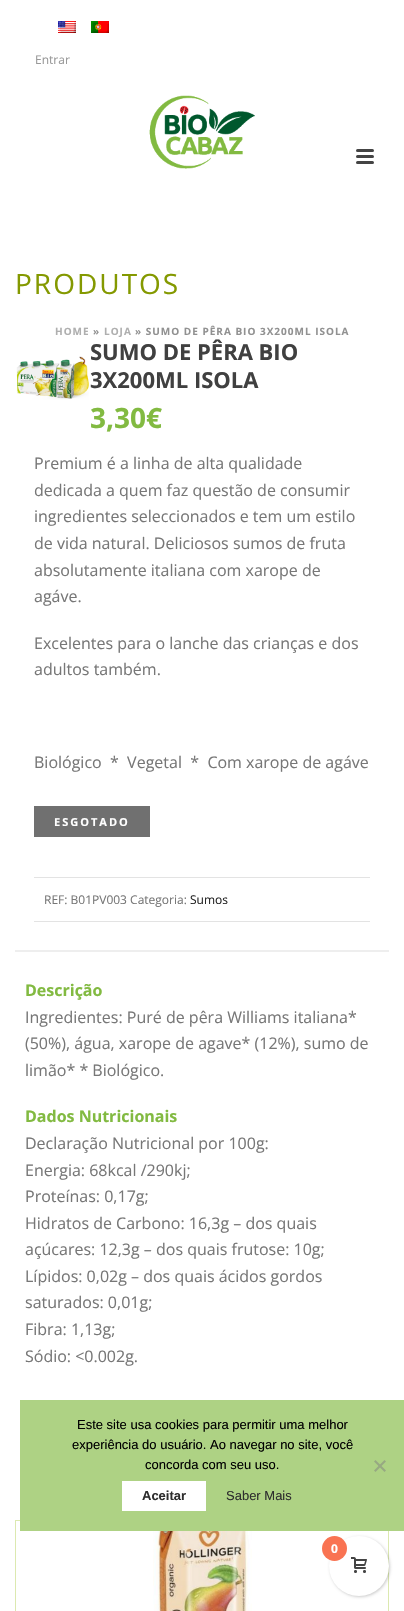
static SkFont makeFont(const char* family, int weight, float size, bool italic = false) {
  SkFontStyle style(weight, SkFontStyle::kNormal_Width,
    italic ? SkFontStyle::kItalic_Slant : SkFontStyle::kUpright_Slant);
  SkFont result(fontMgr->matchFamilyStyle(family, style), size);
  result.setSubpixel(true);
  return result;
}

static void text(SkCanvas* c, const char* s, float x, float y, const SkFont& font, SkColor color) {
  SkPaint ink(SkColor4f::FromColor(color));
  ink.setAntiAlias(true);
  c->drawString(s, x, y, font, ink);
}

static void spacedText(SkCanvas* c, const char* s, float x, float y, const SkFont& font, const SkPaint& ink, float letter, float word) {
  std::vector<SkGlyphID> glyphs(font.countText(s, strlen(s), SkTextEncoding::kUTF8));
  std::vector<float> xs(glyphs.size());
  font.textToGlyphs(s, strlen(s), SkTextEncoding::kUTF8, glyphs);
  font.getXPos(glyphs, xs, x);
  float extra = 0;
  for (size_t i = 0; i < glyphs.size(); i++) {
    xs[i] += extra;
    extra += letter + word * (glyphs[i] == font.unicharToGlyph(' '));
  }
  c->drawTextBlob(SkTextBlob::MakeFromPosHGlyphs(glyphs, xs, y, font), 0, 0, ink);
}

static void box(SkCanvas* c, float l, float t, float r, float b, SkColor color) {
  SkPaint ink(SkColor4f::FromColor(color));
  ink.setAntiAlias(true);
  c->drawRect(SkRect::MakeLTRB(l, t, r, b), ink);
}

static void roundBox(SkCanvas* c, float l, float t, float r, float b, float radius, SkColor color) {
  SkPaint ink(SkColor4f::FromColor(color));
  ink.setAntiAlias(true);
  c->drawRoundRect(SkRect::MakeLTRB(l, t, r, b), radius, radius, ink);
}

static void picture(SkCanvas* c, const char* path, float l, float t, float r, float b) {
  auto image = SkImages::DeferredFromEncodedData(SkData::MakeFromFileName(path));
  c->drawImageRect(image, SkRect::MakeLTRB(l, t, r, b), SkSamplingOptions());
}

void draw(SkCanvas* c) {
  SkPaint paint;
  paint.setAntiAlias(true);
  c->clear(0xffffffff);
  picture(c, "img_01.png", 58, 21, 76, 33);
  picture(c, "img_02.png", 91, 21, 109, 33);
  SkFont face1 = makeFont("Open Sans", 400, 12);
  text(c, "Entrar", 35, 64, face1, 0xff999999);
  picture(c, "img_03.png", 149, 95, 255, 169);
  roundBox(c, 356, 149, 374, 152, 1.5f, 0xff444444);
  roundBox(c, 356, 155, 374, 158, 1.5f, 0xff444444);
  roundBox(c, 356, 161, 374, 164, 1.5f, 0xff444444);
  SkFont face2 = makeFont("Open Sans", 400, 28);
  paint.setColor(0xff849900);
  spacedText(c, "PRODUTOS", 15, 294, face2, paint, 2, 0);
  SkFont face3 = makeFont("Open Sans", 700, 10);
  paint.setColor(0xffafafaf);
  spacedText(c, "HOME", 55, 335, face3, paint, 1, 0);
  paint.setColor(0xff919191);
  spacedText(c, "»", 93, 335, face3, paint, 1, 0);
  paint.setColor(0xffafafaf);
  spacedText(c, "LOJA", 104, 335, face3, paint, 1, 0);
  paint.setColor(0xff919191);
  spacedText(c, "» SUMO DE PÊRA BIO 3X200ML ISOLA", 135, 335, face3, paint, 1, 0);
  SkFont face4 = makeFont("Open Sans", 700, 22);
  text(c, "SUMO DE PÊRA BIO", 90, 360, face4, 0xff404040);
  text(c, "3X200ML ISOLA", 90, 388, face4, 0xff404040);
  SkFont face5 = makeFont("Open Sans", 700, 28);
  text(c, "3,30€", 90, 428, face5, 0xff82ba41);
  SkFont face6 = makeFont("Open Sans", 400, 16);
  text(c, "Premium é a linha de alta qualidade", 34, 469, face6, 0xff777777);
  text(c, "dedicada a quem faz questão de consumir", 34, 496, face6, 0xff777777);
  text(c, "ingredientes seleccionados e tem um estilo", 34, 522, face6, 0xff777777);
  text(c, "de vida natural. Deliciosos sumos de fruta", 34, 549, face6, 0xff777777);
  text(c, "absolutamente italiana com xarope de", 34, 576, face6, 0xff777777);
  text(c, "agáve.", 34, 602, face6, 0xff777777);
  text(c, "Excelentes para o lanche das crianças e dos", 34, 649, face6, 0xff777777);
  text(c, "adultos também.", 34, 675, face6, 0xff777777);
  text(c, "Biológico  *  Vegetal  *  Com xarope de agáve", 34, 768, face6, 0xff777777);
  box(c, 34, 806, 150, 837, 0xff707070);
  SkFont face7 = makeFont("Open Sans", 700, 11);
  paint.setColor(0xffffffff);
  spacedText(c, "ESGOTADO", 54, 826, face7, paint, 2, 0);
  box(c, 34, 877, 370, 878, 0xffe3e3e3);
  box(c, 34, 921, 370, 922, 0xffe3e3e3);
  text(c, "REF: B01PV003 Categoria:", 44, 904, face1, 0xff777777);
  text(c, "Sumos", 190, 904, face1, 0xff252525);
  picture(c, "img_04.png", 16, 356, 89, 400);
  box(c, 15, 950, 389, 952, 0xffeeeeee);
  SkFont face8 = makeFont("Open Sans", 700, 16);
  text(c, "Descrição", 25, 996, face8, 0xff82ba41);
  text(c, "Ingredientes: Puré de pêra Williams italiana*", 25, 1023, face6, 0xff777777);
  text(c, "(50%), água, xarope de agave* (12%), sumo de", 25, 1049, face6, 0xff777777);
  text(c, "limão* * Biológico.", 25, 1076, face6, 0xff777777);
  text(c, "Dados Nutricionais", 25, 1122, face8, 0xff82ba41);
  text(c, "Declaração Nutricional por 100g:", 25, 1149, face6, 0xff777777);
  text(c, "Energia: 68kcal /290kj;", 25, 1176, face6, 0xff777777);
  text(c, "Proteínas: 0,17g;", 25, 1202, face6, 0xff777777);
  text(c, "Hidratos de Carbono: 16,3g – dos quais", 25, 1229, face6, 0xff777777);
  text(c, "açúcares: 12,3g – dos quais frutose: 10g;", 25, 1255, face6, 0xff777777);
  text(c, "Lípidos: 0,02g – dos quais ácidos gordos", 25, 1282, face6, 0xff777777);
  text(c, "saturados: 0,01g;", 25, 1308, face6, 0xff777777);
  text(c, "Fibra: 1,13g;", 25, 1335, face6, 0xff777777);
  text(c, "Sódio: <0.002g.", 25, 1362, face6, 0xff777777);
  paint.setStyle(SkPaint::kStroke_Style);
  paint.setStrokeWidth(1);
  paint.setColor(0xffdce9b0);
  c->drawRect(SkRect::MakeLTRB(15.5f, 1520.5f, 388.5f, 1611.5f), paint);
  picture(c, "img_05.png", 153, 1531, 252, 1611);
  box(c, 20, 1400, 404, 1531, 0xffaed284);
  SkFont face9 = makeFont("Liberation Sans", 400, 13);
  text(c, "Este site usa cookies para permitir uma melhor", 77, 1429, face9, 0xff000000);
  text(c, "experiência do usuário. Ao navegar no site, você", 72, 1449, face9, 0xff000000);
  text(c, "concorda com seu uso.", 145, 1469, face9, 0xff000000);
  paint.setStyle(SkPaint::kFill_Style);
  paint.setColor(0xff97a982);
  c->drawPath(SkPathBuilder().moveTo(384.5f, 1460).lineTo(386, 1461.5f).lineTo(375.5f, 1472).lineTo(374, 1470.5f).close().detach(), paint);
  c->drawPath(SkPathBuilder().moveTo(374, 1461.5f).lineTo(375.5f, 1460).lineTo(386, 1470.5f).lineTo(384.5f, 1472).close().detach(), paint);
  box(c, 122, 1481, 206, 1511, 0xffffffff);
  SkFont face10 = makeFont("Liberation Sans", 700, 13);
  text(c, "Aceitar", 142, 1500, face10, 0xff2e2e2e);
  text(c, "Saber Mais", 226, 1500, face9, 0xff2e2e2e);
  paint.setColor(0x33000000);
  paint.setMaskFilter(SkMaskFilter::MakeBlur(kNormal_SkBlurStyle, 1.5f));
  c->drawRoundRect(SkRect::MakeLTRB(330, 1537, 390, 1597), 30, 30, paint);
  paint.setMaskFilter(nullptr);
  paint.setColor(0xffffffff);
  c->drawCircle(359, 1566, 30, paint);
  paint.setColor(0xfff97352);
  c->drawCircle(334.5f, 1548.5f, 12.5f, paint);
  SkFont face11 = makeFont("Open Sans", 700, 12);
  text(c, "0", 331, 1553, face11, 0xffffffff);
  picture(c, "img_06.png", 351, 1557, 367, 1573);
}
